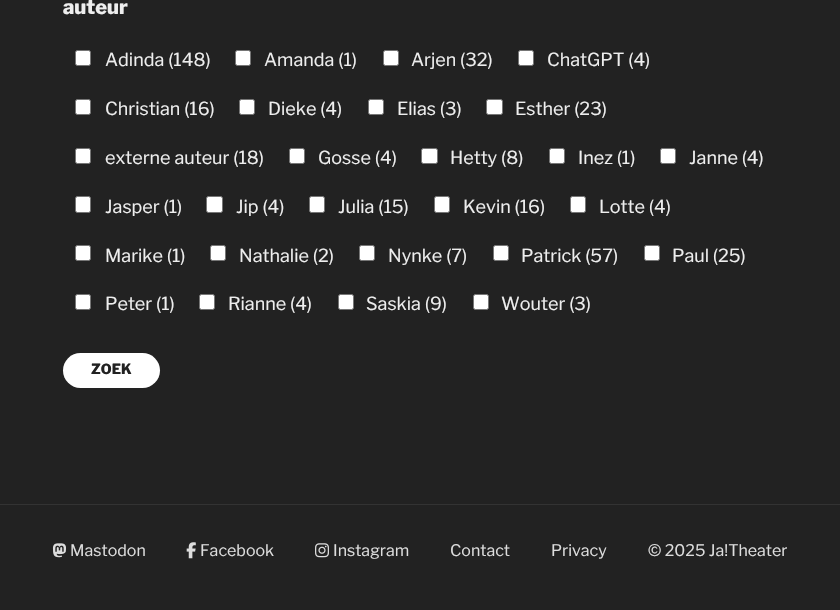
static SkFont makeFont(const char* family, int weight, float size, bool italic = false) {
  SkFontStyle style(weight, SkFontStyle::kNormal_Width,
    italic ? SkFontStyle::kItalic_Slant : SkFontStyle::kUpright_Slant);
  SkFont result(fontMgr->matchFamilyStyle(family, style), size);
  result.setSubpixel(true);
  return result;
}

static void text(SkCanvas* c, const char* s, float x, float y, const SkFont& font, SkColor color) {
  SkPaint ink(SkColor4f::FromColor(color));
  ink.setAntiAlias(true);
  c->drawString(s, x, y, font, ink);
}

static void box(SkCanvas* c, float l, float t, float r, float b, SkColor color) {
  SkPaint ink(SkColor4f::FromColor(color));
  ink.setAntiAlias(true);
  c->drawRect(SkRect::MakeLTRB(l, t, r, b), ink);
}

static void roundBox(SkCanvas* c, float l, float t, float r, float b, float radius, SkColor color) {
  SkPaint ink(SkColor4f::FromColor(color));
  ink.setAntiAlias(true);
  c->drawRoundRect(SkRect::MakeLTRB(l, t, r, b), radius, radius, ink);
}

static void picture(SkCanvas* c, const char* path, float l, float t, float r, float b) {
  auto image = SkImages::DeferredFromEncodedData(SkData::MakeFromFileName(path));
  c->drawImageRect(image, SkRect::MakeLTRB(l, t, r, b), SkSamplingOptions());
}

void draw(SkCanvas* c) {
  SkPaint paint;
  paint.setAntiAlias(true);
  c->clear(0xff222222);
  SkFont face1 = makeFont("Libre Franklin", 100, 20);
  text(c, "auteur", 63, 14, face1, 0xffeeeeee);
  paint.setColor(0xffffffff);
  c->drawRoundRect(SkRect::MakeLTRB(75.5f, 50.5f, 90.5f, 65.5f), 2, 2, paint);
  paint.setStyle(SkPaint::kStroke_Style);
  paint.setStrokeWidth(1);
  paint.setColor(0xff767676);
  c->drawRoundRect(SkRect::MakeLTRB(75.5f, 50.5f, 90.5f, 65.5f), 2, 2, paint);
  SkFont face2 = makeFont("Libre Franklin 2", 100, 18);
  text(c, "Adinda (148)", 105, 66, face2, 0xffeeeeee);
  paint.setStyle(SkPaint::kFill_Style);
  paint.setColor(0xffffffff);
  c->drawRoundRect(SkRect::MakeLTRB(235.5f, 50.5f, 250.5f, 65.5f), 2, 2, paint);
  paint.setStyle(SkPaint::kStroke_Style);
  paint.setColor(0xff767676);
  c->drawRoundRect(SkRect::MakeLTRB(235.5f, 50.5f, 250.5f, 65.5f), 2, 2, paint);
  text(c, "Amanda (1)", 264, 66, face2, 0xffeeeeee);
  paint.setStyle(SkPaint::kFill_Style);
  paint.setColor(0xffffffff);
  c->drawRoundRect(SkRect::MakeLTRB(383.5f, 50.5f, 398.5f, 65.5f), 2, 2, paint);
  paint.setStyle(SkPaint::kStroke_Style);
  paint.setColor(0xff767676);
  c->drawRoundRect(SkRect::MakeLTRB(383.5f, 50.5f, 398.5f, 65.5f), 2, 2, paint);
  text(c, "Arjen (32)", 411, 66, face2, 0xffeeeeee);
  paint.setStyle(SkPaint::kFill_Style);
  paint.setColor(0xffffffff);
  c->drawRoundRect(SkRect::MakeLTRB(518.5f, 50.5f, 533.5f, 65.5f), 2, 2, paint);
  paint.setStyle(SkPaint::kStroke_Style);
  paint.setColor(0xff767676);
  c->drawRoundRect(SkRect::MakeLTRB(518.5f, 50.5f, 533.5f, 65.5f), 2, 2, paint);
  text(c, "ChatGPT (4)", 547, 66, face2, 0xffeeeeee);
  paint.setStyle(SkPaint::kFill_Style);
  paint.setColor(0xffffffff);
  c->drawRoundRect(SkRect::MakeLTRB(75.5f, 99.5f, 90.5f, 114.5f), 2, 2, paint);
  paint.setStyle(SkPaint::kStroke_Style);
  paint.setColor(0xff767676);
  c->drawRoundRect(SkRect::MakeLTRB(75.5f, 99.5f, 90.5f, 114.5f), 2, 2, paint);
  text(c, "Christian (16)", 105, 115, face2, 0xffeeeeee);
  paint.setStyle(SkPaint::kFill_Style);
  paint.setColor(0xffffffff);
  c->drawRoundRect(SkRect::MakeLTRB(239.5f, 99.5f, 254.5f, 114.5f), 2, 2, paint);
  paint.setStyle(SkPaint::kStroke_Style);
  paint.setColor(0xff767676);
  c->drawRoundRect(SkRect::MakeLTRB(239.5f, 99.5f, 254.5f, 114.5f), 2, 2, paint);
  text(c, "Dieke (4)", 268, 115, face2, 0xffeeeeee);
  paint.setStyle(SkPaint::kFill_Style);
  paint.setColor(0xffffffff);
  c->drawRoundRect(SkRect::MakeLTRB(368.5f, 99.5f, 383.5f, 114.5f), 2, 2, paint);
  paint.setStyle(SkPaint::kStroke_Style);
  paint.setColor(0xff767676);
  c->drawRoundRect(SkRect::MakeLTRB(368.5f, 99.5f, 383.5f, 114.5f), 2, 2, paint);
  text(c, "Elias (3)", 397, 115, face2, 0xffeeeeee);
  paint.setStyle(SkPaint::kFill_Style);
  paint.setColor(0xffffffff);
  c->drawRoundRect(SkRect::MakeLTRB(486.5f, 99.5f, 502.5f, 114.5f), 2, 2, paint);
  paint.setStyle(SkPaint::kStroke_Style);
  paint.setColor(0xff767676);
  c->drawRoundRect(SkRect::MakeLTRB(486.5f, 99.5f, 502.5f, 114.5f), 2, 2, paint);
  text(c, "Esther (23)", 515, 115, face2, 0xffeeeeee);
  paint.setStyle(SkPaint::kFill_Style);
  paint.setColor(0xffffffff);
  c->drawRoundRect(SkRect::MakeLTRB(75.5f, 148.5f, 90.5f, 163.5f), 2, 2, paint);
  paint.setStyle(SkPaint::kStroke_Style);
  paint.setColor(0xff767676);
  c->drawRoundRect(SkRect::MakeLTRB(75.5f, 148.5f, 90.5f, 163.5f), 2, 2, paint);
  text(c, "externe auteur (18)", 105, 164, face2, 0xffeeeeee);
  paint.setStyle(SkPaint::kFill_Style);
  paint.setColor(0xffffffff);
  c->drawRoundRect(SkRect::MakeLTRB(289.5f, 148.5f, 304.5f, 163.5f), 2, 2, paint);
  paint.setStyle(SkPaint::kStroke_Style);
  paint.setColor(0xff767676);
  c->drawRoundRect(SkRect::MakeLTRB(289.5f, 148.5f, 304.5f, 163.5f), 2, 2, paint);
  text(c, "Gosse (4)", 318, 164, face2, 0xffeeeeee);
  paint.setStyle(SkPaint::kFill_Style);
  paint.setColor(0xffffffff);
  c->drawRoundRect(SkRect::MakeLTRB(421.5f, 148.5f, 437.5f, 163.5f), 2, 2, paint);
  paint.setStyle(SkPaint::kStroke_Style);
  paint.setColor(0xff767676);
  c->drawRoundRect(SkRect::MakeLTRB(421.5f, 148.5f, 437.5f, 163.5f), 2, 2, paint);
  text(c, "Hetty (8)", 450, 164, face2, 0xffeeeeee);
  paint.setStyle(SkPaint::kFill_Style);
  paint.setColor(0xffffffff);
  c->drawRoundRect(SkRect::MakeLTRB(549.5f, 148.5f, 564.5f, 163.5f), 2, 2, paint);
  paint.setStyle(SkPaint::kStroke_Style);
  paint.setColor(0xff767676);
  c->drawRoundRect(SkRect::MakeLTRB(549.5f, 148.5f, 564.5f, 163.5f), 2, 2, paint);
  text(c, "Inez (1)", 578, 164, face2, 0xffeeeeee);
  paint.setStyle(SkPaint::kFill_Style);
  paint.setColor(0xffffffff);
  c->drawRoundRect(SkRect::MakeLTRB(660.5f, 148.5f, 675.5f, 163.5f), 2, 2, paint);
  paint.setStyle(SkPaint::kStroke_Style);
  paint.setColor(0xff767676);
  c->drawRoundRect(SkRect::MakeLTRB(660.5f, 148.5f, 675.5f, 163.5f), 2, 2, paint);
  text(c, "Janne (4)", 689, 164, face2, 0xffeeeeee);
  paint.setStyle(SkPaint::kFill_Style);
  paint.setColor(0xffffffff);
  c->drawRoundRect(SkRect::MakeLTRB(75.5f, 196.5f, 90.5f, 212.5f), 2, 2, paint);
  paint.setStyle(SkPaint::kStroke_Style);
  paint.setColor(0xff767676);
  c->drawRoundRect(SkRect::MakeLTRB(75.5f, 196.5f, 90.5f, 212.5f), 2, 2, paint);
  text(c, "Jasper (1)", 105, 213, face2, 0xffeeeeee);
  paint.setStyle(SkPaint::kFill_Style);
  paint.setColor(0xffffffff);
  c->drawRoundRect(SkRect::MakeLTRB(206.5f, 196.5f, 222.5f, 212.5f), 2, 2, paint);
  paint.setStyle(SkPaint::kStroke_Style);
  paint.setColor(0xff767676);
  c->drawRoundRect(SkRect::MakeLTRB(206.5f, 196.5f, 222.5f, 212.5f), 2, 2, paint);
  text(c, "Jip (4)", 236, 213, face2, 0xffeeeeee);
  paint.setStyle(SkPaint::kFill_Style);
  paint.setColor(0xffffffff);
  c->drawRoundRect(SkRect::MakeLTRB(309.5f, 196.5f, 324.5f, 212.5f), 2, 2, paint);
  paint.setStyle(SkPaint::kStroke_Style);
  paint.setColor(0xff767676);
  c->drawRoundRect(SkRect::MakeLTRB(309.5f, 196.5f, 324.5f, 212.5f), 2, 2, paint);
  text(c, "Julia (15)", 338, 213, face2, 0xffeeeeee);
  paint.setStyle(SkPaint::kFill_Style);
  paint.setColor(0xffffffff);
  c->drawRoundRect(SkRect::MakeLTRB(434.5f, 196.5f, 449.5f, 212.5f), 2, 2, paint);
  paint.setStyle(SkPaint::kStroke_Style);
  paint.setColor(0xff767676);
  c->drawRoundRect(SkRect::MakeLTRB(434.5f, 196.5f, 449.5f, 212.5f), 2, 2, paint);
  text(c, "Kevin (16)", 463, 213, face2, 0xffeeeeee);
  paint.setStyle(SkPaint::kFill_Style);
  paint.setColor(0xffffffff);
  c->drawRoundRect(SkRect::MakeLTRB(570.5f, 196.5f, 585.5f, 212.5f), 2, 2, paint);
  paint.setStyle(SkPaint::kStroke_Style);
  paint.setColor(0xff767676);
  c->drawRoundRect(SkRect::MakeLTRB(570.5f, 196.5f, 585.5f, 212.5f), 2, 2, paint);
  text(c, "Lotte (4)", 599, 213, face2, 0xffeeeeee);
  paint.setStyle(SkPaint::kFill_Style);
  paint.setColor(0xffffffff);
  c->drawRoundRect(SkRect::MakeLTRB(75.5f, 245.5f, 90.5f, 260.5f), 2, 2, paint);
  paint.setStyle(SkPaint::kStroke_Style);
  paint.setColor(0xff767676);
  c->drawRoundRect(SkRect::MakeLTRB(75.5f, 245.5f, 90.5f, 260.5f), 2, 2, paint);
  text(c, "Marike (1)", 105, 262, face2, 0xffeeeeee);
  paint.setStyle(SkPaint::kFill_Style);
  paint.setColor(0xffffffff);
  c->drawRoundRect(SkRect::MakeLTRB(210.5f, 245.5f, 225.5f, 260.5f), 2, 2, paint);
  paint.setStyle(SkPaint::kStroke_Style);
  paint.setColor(0xff767676);
  c->drawRoundRect(SkRect::MakeLTRB(210.5f, 245.5f, 225.5f, 260.5f), 2, 2, paint);
  text(c, "Nathalie (2)", 239, 262, face2, 0xffeeeeee);
  paint.setStyle(SkPaint::kFill_Style);
  paint.setColor(0xffffffff);
  c->drawRoundRect(SkRect::MakeLTRB(359.5f, 245.5f, 374.5f, 260.5f), 2, 2, paint);
  paint.setStyle(SkPaint::kStroke_Style);
  paint.setColor(0xff767676);
  c->drawRoundRect(SkRect::MakeLTRB(359.5f, 245.5f, 374.5f, 260.5f), 2, 2, paint);
  text(c, "Nynke (7)", 388, 262, face2, 0xffeeeeee);
  paint.setStyle(SkPaint::kFill_Style);
  paint.setColor(0xffffffff);
  c->drawRoundRect(SkRect::MakeLTRB(493.5f, 245.5f, 508.5f, 260.5f), 2, 2, paint);
  paint.setStyle(SkPaint::kStroke_Style);
  paint.setColor(0xff767676);
  c->drawRoundRect(SkRect::MakeLTRB(493.5f, 245.5f, 508.5f, 260.5f), 2, 2, paint);
  text(c, "Patrick (57)", 521, 262, face2, 0xffeeeeee);
  paint.setStyle(SkPaint::kFill_Style);
  paint.setColor(0xffffffff);
  c->drawRoundRect(SkRect::MakeLTRB(644.5f, 245.5f, 659.5f, 260.5f), 2, 2, paint);
  paint.setStyle(SkPaint::kStroke_Style);
  paint.setColor(0xff767676);
  c->drawRoundRect(SkRect::MakeLTRB(644.5f, 245.5f, 659.5f, 260.5f), 2, 2, paint);
  text(c, "Paul (25)", 672, 262, face2, 0xffeeeeee);
  paint.setStyle(SkPaint::kFill_Style);
  paint.setColor(0xffffffff);
  c->drawRoundRect(SkRect::MakeLTRB(75.5f, 294.5f, 90.5f, 309.5f), 2, 2, paint);
  paint.setStyle(SkPaint::kStroke_Style);
  paint.setColor(0xff767676);
  c->drawRoundRect(SkRect::MakeLTRB(75.5f, 294.5f, 90.5f, 309.5f), 2, 2, paint);
  text(c, "Peter (1)", 105, 310, face2, 0xffeeeeee);
  paint.setStyle(SkPaint::kFill_Style);
  paint.setColor(0xffffffff);
  c->drawRoundRect(SkRect::MakeLTRB(199.5f, 294.5f, 214.5f, 309.5f), 2, 2, paint);
  paint.setStyle(SkPaint::kStroke_Style);
  paint.setColor(0xff767676);
  c->drawRoundRect(SkRect::MakeLTRB(199.5f, 294.5f, 214.5f, 309.5f), 2, 2, paint);
  text(c, "Rianne (4)", 228, 310, face2, 0xffeeeeee);
  paint.setStyle(SkPaint::kFill_Style);
  paint.setColor(0xffffffff);
  c->drawRoundRect(SkRect::MakeLTRB(338.5f, 294.5f, 353.5f, 309.5f), 2, 2, paint);
  paint.setStyle(SkPaint::kStroke_Style);
  paint.setColor(0xff767676);
  c->drawRoundRect(SkRect::MakeLTRB(338.5f, 294.5f, 353.5f, 309.5f), 2, 2, paint);
  text(c, "Saskia (9)", 366, 310, face2, 0xffeeeeee);
  paint.setStyle(SkPaint::kFill_Style);
  paint.setColor(0xffffffff);
  c->drawRoundRect(SkRect::MakeLTRB(473.5f, 294.5f, 488.5f, 309.5f), 2, 2, paint);
  paint.setStyle(SkPaint::kStroke_Style);
  paint.setColor(0xff767676);
  c->drawRoundRect(SkRect::MakeLTRB(473.5f, 294.5f, 488.5f, 309.5f), 2, 2, paint);
  text(c, "Wouter (3)", 501, 310, face2, 0xffeeeeee);
  roundBox(c, 63, 353, 160, 388, 17.5f, 0xffffffff);
  SkFont face3 = makeFont("Libre Franklin", 100, 14);
  text(c, "ZOEK", 91, 374, face3, 0xff222222);
  box(c, 0, 504, 840, 505, 0xff333333);
  picture(c, "img_01.png", 52, 543, 66, 558);
  SkFont face4 = makeFont("Libre Franklin 2", 100, 16);
  text(c, "Mastodon", 70, 556, face4, 0xffdddddd);
  picture(c, "img_02.png", 186, 542, 196, 559);
  text(c, "Facebook", 200, 556, face4, 0xffdddddd);
  picture(c, "img_03.png", 315, 543, 329, 558);
  text(c, "Instagram", 333, 556, face4, 0xffdddddd);
  text(c, "Contact", 450, 556, face4, 0xffdddddd);
  text(c, "Privacy", 551, 556, face4, 0xffdddddd);
  text(c, "© 2025 Ja!Theater", 648, 556, face4, 0xffdddddd);
}
